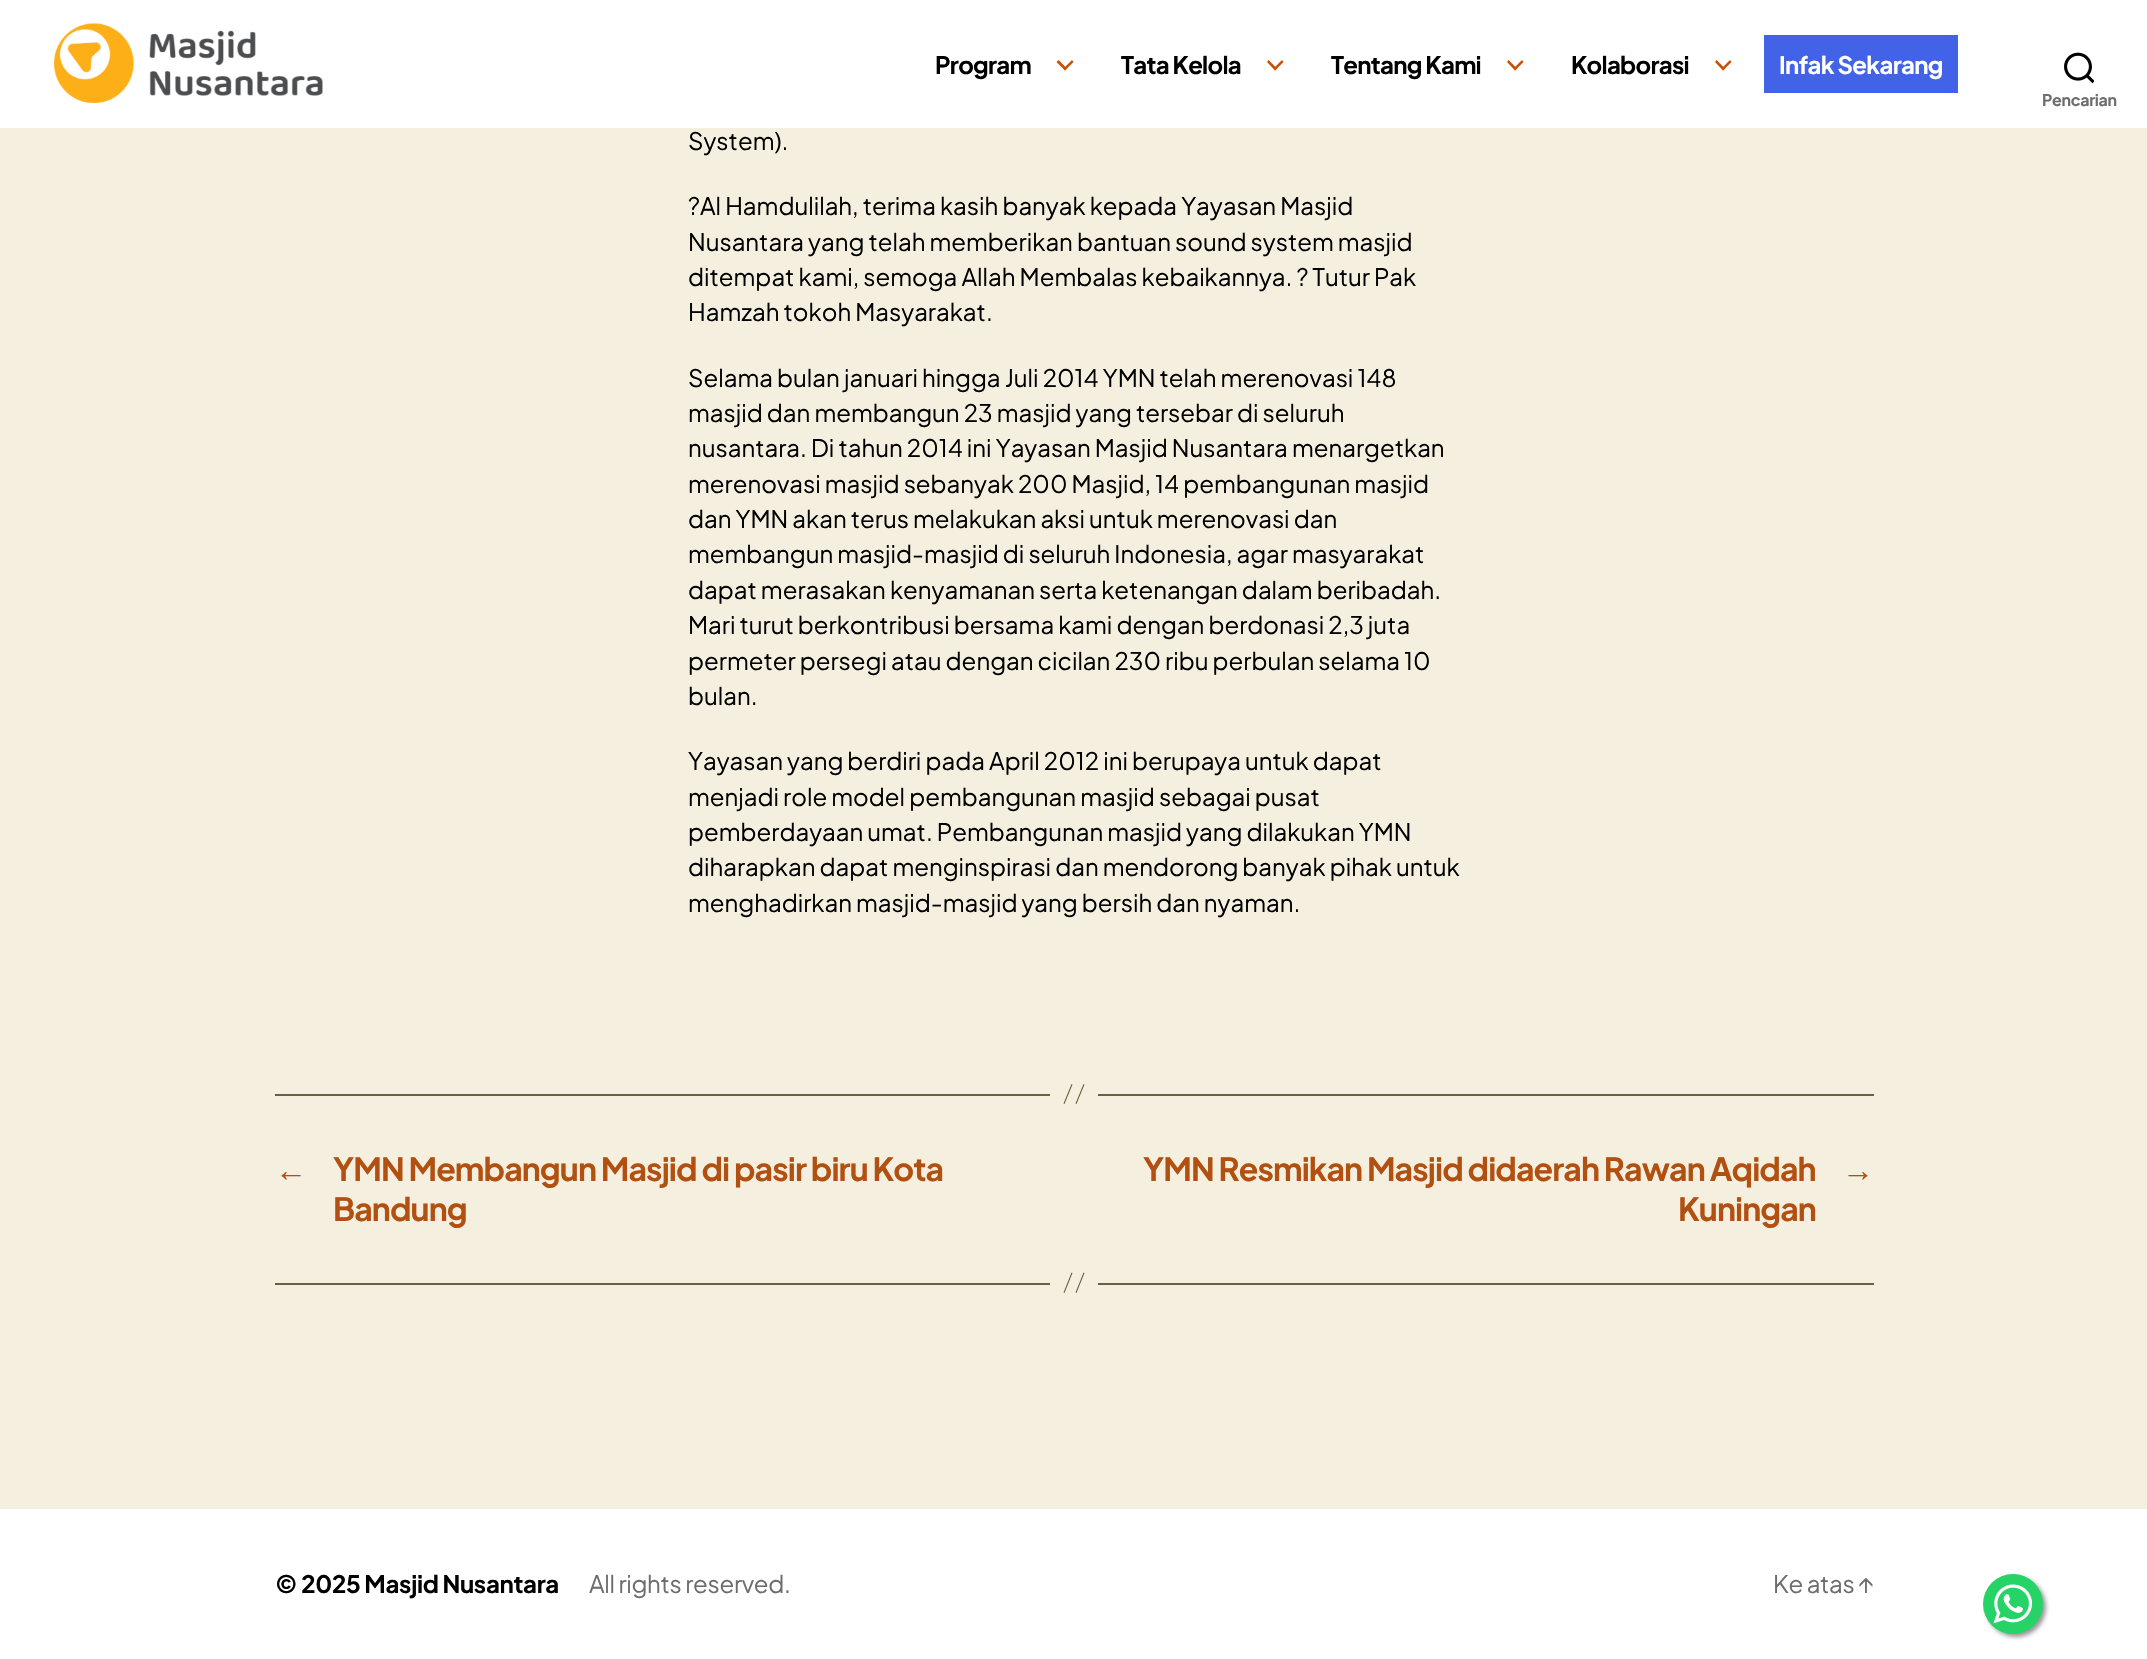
static SkFont makeFont(const char* family, int weight, float size, bool italic = false) {
  SkFontStyle style(weight, SkFontStyle::kNormal_Width,
    italic ? SkFontStyle::kItalic_Slant : SkFontStyle::kUpright_Slant);
  SkFont result(fontMgr->matchFamilyStyle(family, style), size);
  result.setSubpixel(true);
  return result;
}

static void text(SkCanvas* c, const char* s, float x, float y, const SkFont& font, SkColor color) {
  SkPaint ink(SkColor4f::FromColor(color));
  ink.setAntiAlias(true);
  c->drawString(s, x, y, font, ink);
}

static void spacedText(SkCanvas* c, const char* s, float x, float y, const SkFont& font, const SkPaint& ink, float letter, float word) {
  std::vector<SkGlyphID> glyphs(font.countText(s, strlen(s), SkTextEncoding::kUTF8));
  std::vector<float> xs(glyphs.size());
  font.textToGlyphs(s, strlen(s), SkTextEncoding::kUTF8, glyphs);
  font.getXPos(glyphs, xs, x);
  float extra = 0;
  for (size_t i = 0; i < glyphs.size(); i++) {
    xs[i] += extra;
    extra += letter + word * (glyphs[i] == font.unicharToGlyph(' '));
  }
  c->drawTextBlob(SkTextBlob::MakeFromPosHGlyphs(glyphs, xs, y, font), 0, 0, ink);
}

static void box(SkCanvas* c, float l, float t, float r, float b, SkColor color) {
  SkPaint ink(SkColor4f::FromColor(color));
  ink.setAntiAlias(true);
  c->drawRect(SkRect::MakeLTRB(l, t, r, b), ink);
}

static void picture(SkCanvas* c, const char* path, float l, float t, float r, float b) {
  auto image = SkImages::DeferredFromEncodedData(SkData::MakeFromFileName(path));
  c->drawImageRect(image, SkRect::MakeLTRB(l, t, r, b), SkSamplingOptions());
}

void draw(SkCanvas* c) {
  SkPaint paint;
  paint.setAntiAlias(true);
  c->clear(0xfff5efe0);
  box(c, 0, 0, 2147, 128, 0xffffffff);
  picture(c, "img_01.png", 54, 23, 323, 103);
  SkFont face1 = makeFont("Plus Jakarta Sans", 700, 24);
  paint.setColor(0xff000000);
  spacedText(c, "Program", 935, 74, face1, paint, -0.7f, 0);
  paint.setColor(0xffc85203);
  c->drawPath(SkPathBuilder().moveTo(1056.5f, 62).lineTo(1058.5f, 60).lineTo(1067, 68.5f).lineTo(1065, 70.5f).close().detach(), paint);
  c->drawPath(SkPathBuilder().moveTo(1063.5f, 68.5f).lineTo(1072, 60).lineTo(1073.5f, 62).lineTo(1065, 70.5f).close().detach(), paint);
  paint.setColor(0xff000000);
  spacedText(c, "Tata Kelola", 1121, 74, face1, paint, -0.7f, 0);
  paint.setColor(0xffc85203);
  c->drawPath(SkPathBuilder().moveTo(1267, 62).lineTo(1268.5f, 60).lineTo(1277, 68.5f).lineTo(1275, 70.5f).close().detach(), paint);
  c->drawPath(SkPathBuilder().moveTo(1273.5f, 68.5f).lineTo(1282, 60).lineTo(1283.5f, 62).lineTo(1275, 70.5f).close().detach(), paint);
  paint.setColor(0xff000000);
  spacedText(c, "Tentang Kami", 1331, 74, face1, paint, -0.7f, 0);
  paint.setColor(0xffc85203);
  c->drawPath(SkPathBuilder().moveTo(1507, 62).lineTo(1508.5f, 60).lineTo(1517, 68.5f).lineTo(1515, 70.5f).close().detach(), paint);
  c->drawPath(SkPathBuilder().moveTo(1513.5f, 68.5f).lineTo(1522, 60).lineTo(1523.5f, 62).lineTo(1515, 70.5f).close().detach(), paint);
  paint.setColor(0xff000000);
  spacedText(c, "Kolaborasi", 1571, 74, face1, paint, -0.7f, 0);
  paint.setColor(0xffc85203);
  c->drawPath(SkPathBuilder().moveTo(1715, 62).lineTo(1716.5f, 60).lineTo(1725, 68.5f).lineTo(1723, 70.5f).close().detach(), paint);
  c->drawPath(SkPathBuilder().moveTo(1721.5f, 68.5f).lineTo(1730, 60).lineTo(1731.5f, 62).lineTo(1723, 70.5f).close().detach(), paint);
  box(c, 1764, 35, 1958, 93, 0xff4262e8);
  paint.setColor(0xffffffff);
  spacedText(c, "Infak Sekarang", 1779, 74, face1, paint, -0.7f, 0);
  picture(c, "img_02.png", 2064, 52, 2094, 84);
  SkFont face2 = makeFont("Plus Jakarta Sans", 700, 16);
  paint.setColor(0xff6d6d6d);
  spacedText(c, "Pencarian", 2042, 106, face2, paint, -0.3f, 0);
  SkFont face3 = makeFont("Plus Jakarta Sans", 400, 24);
  text(c, "System).", 688, 150, face3, 0xff000000);
  text(c, "?Al Hamdulilah, terima kasih banyak kepada Yayasan Masjid", 688, 215, face3, 0xff000000);
  text(c, "Nusantara yang telah memberikan bantuan sound system masjid", 688, 251, face3, 0xff000000);
  text(c, "ditempat kami, semoga Allah Membalas kebaikannya. ? Tutur Pak", 688, 286, face3, 0xff000000);
  text(c, "Hamzah tokoh Masyarakat.", 688, 321, face3, 0xff000000);
  text(c, "Selama bulan januari hingga Juli 2014 YMN telah merenovasi 148", 688, 387, face3, 0xff000000);
  text(c, "masjid dan membangun 23 masjid yang tersebar di seluruh", 688, 422, face3, 0xff000000);
  text(c, "nusantara. Di tahun 2014 ini Yayasan Masjid Nusantara menargetkan", 688, 457, face3, 0xff000000);
  text(c, "merenovasi masjid sebanyak 200 Masjid, 14 pembangunan masjid", 688, 493, face3, 0xff000000);
  text(c, "dan YMN akan terus melakukan aksi untuk merenovasi dan", 688, 528, face3, 0xff000000);
  text(c, "membangun masjid-masjid di seluruh Indonesia, agar masyarakat", 688, 563, face3, 0xff000000);
  text(c, "dapat merasakan kenyamanan serta ketenangan dalam beribadah.", 688, 599, face3, 0xff000000);
  text(c, "Mari turut berkontribusi bersama kami dengan berdonasi 2,3 juta", 688, 634, face3, 0xff000000);
  text(c, "permeter persegi atau dengan cicilan 230 ribu perbulan selama 10", 688, 670, face3, 0xff000000);
  text(c, "bulan.", 688, 705, face3, 0xff000000);
  text(c, "Yayasan yang berdiri pada April 2012 ini berupaya untuk dapat", 688, 770, face3, 0xff000000);
  text(c, "menjadi role model pembangunan masjid sebagai pusat", 688, 806, face3, 0xff000000);
  text(c, "pemberdayaan umat. Pembangunan masjid yang dilakukan YMN", 688, 841, face3, 0xff000000);
  text(c, "diharapkan dapat menginspirasi dan mendorong banyak pihak untuk", 688, 876, face3, 0xff000000);
  text(c, "menghadirkan masjid-masjid yang bersih dan nyaman.", 688, 912, face3, 0xff000000);
  box(c, 1098, 1094, 1874, 1096, 0xff69603e);
  box(c, 275, 1094, 1050, 1096, 0xff69603e);
  paint.setColor(0xff69603e);
  c->drawPath(SkPathBuilder().moveTo(1071.5f, 1084).lineTo(1072.5f, 1084.5f).lineTo(1064.5f, 1104).lineTo(1063.5f, 1103.5f).close().moveTo(1083.5f, 1084).lineTo(1084.5f, 1084.5f).lineTo(1076.5f, 1104).lineTo(1075.5f, 1103.5f).close().detach(), paint);
  SkFont face4 = makeFont("Liberation Sans", 700, 32);
  paint.setColor(0xffb15010);
  spacedText(c, "←", 275, 1181, face4, paint, -0.9f, 0);
  SkFont face5 = makeFont("Plus Jakarta Sans", 700, 32);
  spacedText(c, "YMN Membangun Masjid di pasir biru Kota", 333, 1181, face5, paint, -0.9f, 0);
  spacedText(c, "Bandung", 333, 1221, face5, paint, -0.9f, 0);
  spacedText(c, "YMN Resmikan Masjid didaerah Rawan Aqidah", 1143, 1181, face5, paint, -0.9f, 0);
  spacedText(c, "Kuningan", 1678, 1221, face5, paint, -0.9f, 0);
  spacedText(c, "→", 1842, 1181, face4, paint, -0.9f, 0);
  box(c, 1098, 1283, 1874, 1285, 0xff69603e);
  box(c, 275, 1283, 1050, 1285, 0xff69603e);
  paint.setColor(0xff69603e);
  c->drawPath(SkPathBuilder().moveTo(1071.5f, 1272.5f).lineTo(1072.5f, 1273).lineTo(1064.5f, 1293).lineTo(1063.5f, 1292.5f).close().moveTo(1083.5f, 1272.5f).lineTo(1084.5f, 1273).lineTo(1076.5f, 1293).lineTo(1075.5f, 1292.5f).close().detach(), paint);
  box(c, 0, 1509, 2147, 1659, 0xffffffff);
  paint.setColor(0xff000000);
  spacedText(c, "© 2025 Masjid Nusantara", 275, 1593, face1, paint, -0.3f, 0);
  paint.setColor(0xff6d6d6d);
  spacedText(c, "All rights reserved.", 589, 1593, face3, paint, -0.3f, 0);
  paint.setColor(0xff999999);
  paint.setMaskFilter(SkMaskFilter::MakeBlur(kNormal_SkBlurStyle, 2));
  c->drawRoundRect(SkRect::MakeLTRB(1986, 1577, 2046, 1637), 30, 30, paint);
  paint.setMaskFilter(nullptr);
  paint.setColor(0xff25d366);
  c->drawCircle(2013, 1604, 30, paint);
  picture(c, "img_03.png", 1993, 1584, 2033, 1624);
  paint.setColor(0xff6d6d6d);
  spacedText(c, "Ke atas ↑", 1773, 1593, face3, paint, -0.3f, 0);
}
